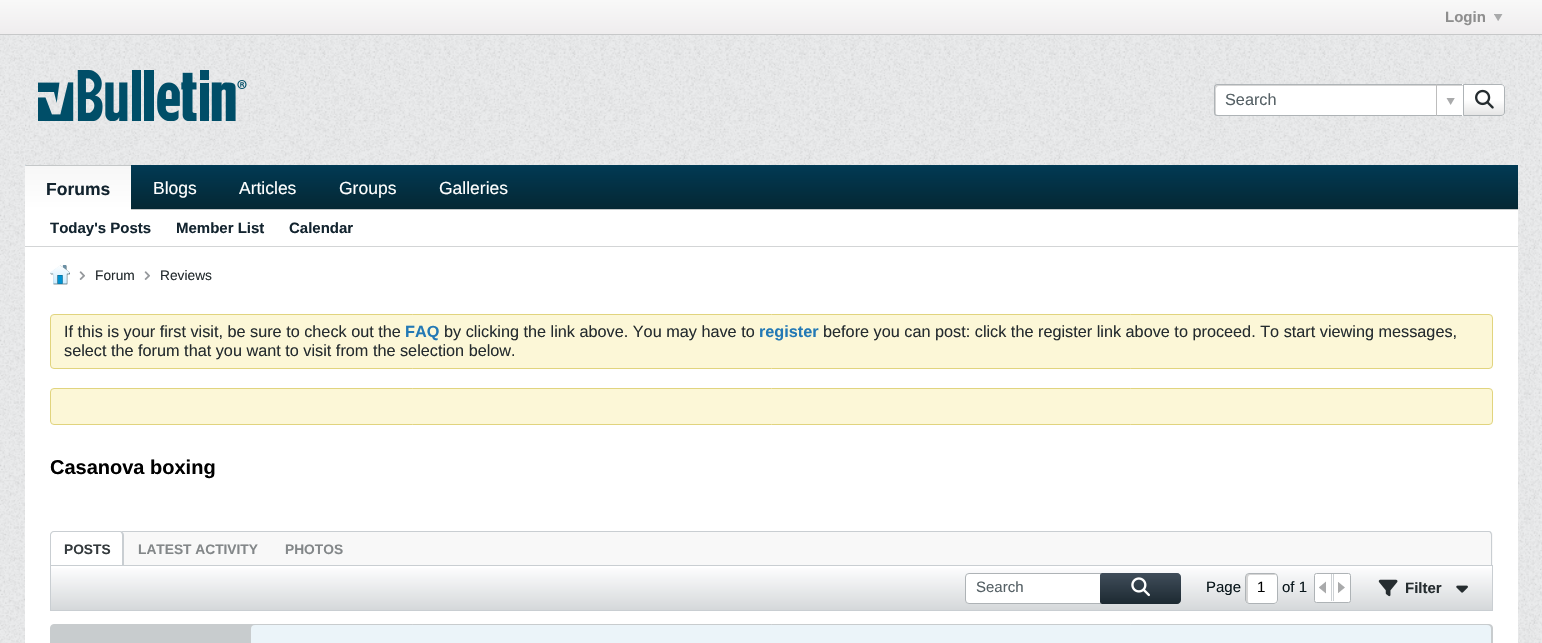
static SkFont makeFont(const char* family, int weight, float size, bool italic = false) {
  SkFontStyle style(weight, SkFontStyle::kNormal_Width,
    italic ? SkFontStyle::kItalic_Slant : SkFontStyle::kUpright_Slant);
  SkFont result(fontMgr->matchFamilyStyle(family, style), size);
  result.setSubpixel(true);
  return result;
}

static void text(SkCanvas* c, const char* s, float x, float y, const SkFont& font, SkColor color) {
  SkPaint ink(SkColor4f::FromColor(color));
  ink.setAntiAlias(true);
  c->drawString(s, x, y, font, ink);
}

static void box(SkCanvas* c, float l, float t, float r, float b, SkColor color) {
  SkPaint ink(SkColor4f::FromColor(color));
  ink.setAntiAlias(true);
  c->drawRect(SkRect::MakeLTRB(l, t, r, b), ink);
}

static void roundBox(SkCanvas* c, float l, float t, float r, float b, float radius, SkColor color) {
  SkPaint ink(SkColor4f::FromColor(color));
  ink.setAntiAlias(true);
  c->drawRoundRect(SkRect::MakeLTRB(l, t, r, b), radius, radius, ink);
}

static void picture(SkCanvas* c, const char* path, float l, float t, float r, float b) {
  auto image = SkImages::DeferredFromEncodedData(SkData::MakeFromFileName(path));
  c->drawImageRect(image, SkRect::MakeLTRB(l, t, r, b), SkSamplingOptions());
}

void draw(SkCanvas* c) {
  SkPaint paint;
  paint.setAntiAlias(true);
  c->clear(0xffeaebec);
  picture(c, "img_01.png", 0, 35, 1542, 643);
  {
    const SkColor colors[] = {0xfff8f8f8, 0xffefedee};
    const float stops[] = {0, 1};
    const SkPoint ends[] = {{771, 0}, {771, 34}};
    paint.setShader(SkGradientShader::MakeLinear(ends, colors, stops, 2, SkTileMode::kClamp));
    paint.setAlpha(255);
  }
  c->drawRect(SkRect::MakeLTRB(0, 0, 1542, 34), paint);
  box(c, 0, 34, 1542, 35, 0xffc7c8c9);
  SkFont face1 = makeFont("Liberation Sans", 700, 15);
  text(c, "Login", 1445, 22, face1, 0xff8e8e8e);
  picture(c, "img_02.png", 1494, 14, 1503, 21);
  box(c, 25, 35, 1518, 165, 0xffeaebec);
  picture(c, "img_03.png", 25, 35, 1518, 165);
  picture(c, "img_04.png", 38, 70, 247, 121);
  paint.setShader(nullptr);
  paint.setColor(0xffffffff);
  c->drawPath(SkPathBuilder().moveTo(1218, 84).lineTo(1463, 84).lineTo(1463, 116).lineTo(1218, 116).cubicTo(1216, 116, 1214, 114, 1214, 112).lineTo(1214, 88).cubicTo(1214, 86, 1216, 84, 1218, 84).close().detach(), paint);
  paint.setColor(0xffd5d5d5);
  c->drawPath(SkPathBuilder().moveTo(1219, 86).lineTo(1463, 86).lineTo(1463, 85).lineTo(1218, 85).cubicTo(1216, 85, 1215, 86, 1215, 88).lineTo(1215, 112).cubicTo(1215, 113, 1215, 114, 1216, 115).lineTo(1216, 93).cubicTo(1216, 91, 1215, 86, 1219, 86).close().detach(), paint);
  paint.setColor(0xffaeb3b6);
  c->drawPath(SkPathBuilder(SkPathFillType::kEvenOdd).moveTo(1218, 84).lineTo(1462, 84).lineTo(1462, 116).lineTo(1218, 116).cubicTo(1215, 116, 1214, 115, 1214, 112).lineTo(1214, 88).cubicTo(1214, 85, 1215, 84, 1218, 84).close().moveTo(1218, 85).lineTo(1462, 85).lineTo(1462, 115).lineTo(1218, 115).cubicTo(1216, 115, 1215, 114, 1215, 112).lineTo(1215, 88).cubicTo(1215, 86, 1216, 85, 1218, 85).close().detach(), paint);
  SkFont face2 = makeFont("Liberation Sans", 400, 16.25f);
  text(c, "Search", 1225, 105, face2, 0xff556065);
  box(c, 1436, 84, 1437, 116, 0xffbdbdbd);
  picture(c, "img_05.png", 1446, 98, 1455, 105);
  paint.setColor(0xffffffff);
  c->drawPath(SkPathBuilder().moveTo(1463, 84).lineTo(1501, 84).cubicTo(1503, 84, 1505, 86, 1505, 88).lineTo(1505, 112).cubicTo(1505, 114, 1503, 116, 1501, 116).lineTo(1463, 116).close().detach(), paint);
  c->save();
  c->clipPath(SkPathBuilder().moveTo(1463, 84).lineTo(1501, 84).cubicTo(1503, 84, 1505, 86, 1505, 88).lineTo(1505, 112).cubicTo(1505, 114, 1503, 116, 1501, 116).lineTo(1463, 116).close().detach(), true);
  {
    const SkColor colors[] = {0x1a000000, 0x00000000, 0x00ffffff, 0xb3ffffff};
    const float stops[] = {0, 0.5f, 0.5f, 1};
    const SkPoint ends[] = {{1484, 115}, {1484, 85}};
    paint.setShader(SkGradientShader::MakeLinear(ends, colors, stops, 4, SkTileMode::kClamp));
    paint.setAlpha(255);
  }
  c->drawRect(SkRect::MakeLTRB(1464, 85, 1505, 115), paint);
  c->restore();
  paint.setStyle(SkPaint::kStroke_Style);
  paint.setStrokeWidth(1);
  paint.setShader(nullptr);
  paint.setColor(0xffaeb3b6);
  c->drawPath(SkPathBuilder().moveTo(1463.5f, 84.5f).lineTo(1501, 84.5f).cubicTo(1503, 84.5f, 1504.5f, 86, 1504.5f, 88).lineTo(1504.5f, 112).cubicTo(1504.5f, 114, 1503, 115.5f, 1501, 115.5f).lineTo(1463.5f, 115.5f).close().detach(), paint);
  picture(c, "img_06.png", 1475, 89, 1494, 109);
  paint.setStyle(SkPaint::kFill_Style);
  {
    const SkColor colors[] = {0xff013a54, 0xff052733};
    const float stops[] = {0, 1};
    const SkPoint ends[] = {{771, 165}, {771, 209}};
    paint.setShader(SkGradientShader::MakeLinear(ends, colors, stops, 2, SkTileMode::kClamp));
    paint.setAlpha(255);
  }
  c->drawRect(SkRect::MakeLTRB(25, 165, 1518, 209), paint);
  box(c, 131, 209, 1518, 210, 0xffc4c7c8);
  {
    const SkColor colors[] = {0xfff7f7f7, 0xffffffff};
    const float stops[] = {0, 1};
    const SkPoint ends[] = {{78, 123}, {78, 166}};
    paint.setShader(SkGradientShader::MakeLinear(ends, colors, stops, 2, SkTileMode::kClamp));
    paint.setAlpha(255);
  }
  c->drawPath(SkPathBuilder().moveTo(26, 165).lineTo(130, 165).cubicTo(130.5f, 165, 131, 165.5f, 131, 166).lineTo(25, 166).cubicTo(25, 165.5f, 25.5f, 165, 26, 165).close().detach(), paint);
  {
    const SkColor colors[] = {0xfff7f7f7, 0xffffffff};
    const float stops[] = {0, 1};
    const SkPoint ends[] = {{78, 166}, {78, 210}};
    paint.setShader(SkGradientShader::MakeLinear(ends, colors, stops, 2, SkTileMode::kClamp));
    paint.setAlpha(255);
  }
  c->drawRect(SkRect::MakeLTRB(25, 166, 131, 210), paint);
  box(c, 26, 165, 131, 166, 0xffc4c7c8);
  SkFont face3 = makeFont("Liberation Sans", 700, 17.5f);
  text(c, "Forums", 46, 195, face3, 0xff13242f);
  SkFont face4 = makeFont("Liberation Sans", 400, 17.5f);
  text(c, "Blogs", 153, 194, face4, 0xffffffff);
  text(c, "Articles", 239, 194, face4, 0xffffffff);
  text(c, "Groups", 339, 194, face4, 0xffffffff);
  text(c, "Galleries", 439, 194, face4, 0xffffffff);
  box(c, 25, 210, 1518, 643, 0xffffffff);
  box(c, 25, 246, 1518, 247, 0xffd3d5d6);
  text(c, "Today's Posts", 50, 233, face1, 0xff13242f);
  text(c, "Member List", 176, 233, face1, 0xff13242f);
  text(c, "Calendar", 289, 233, face1, 0xff13242f);
  picture(c, "img_07.png", 50, 265, 70, 285);
  picture(c, "img_08.png", 79, 271, 85, 280);
  SkFont face5 = makeFont("Liberation Sans", 400, 13.75f);
  text(c, "Forum", 95, 280, face5, 0xff252c2f);
  picture(c, "img_08.png", 144, 271, 150, 280);
  text(c, "Reviews", 160, 280, face5, 0xff252c2f);
  paint.setShader(nullptr);
  paint.setColor(0xfffcf7d7);
  c->drawRoundRect(SkRect::MakeLTRB(50.5f, 314.5f, 1492.5f, 368.5f), 3.5f, 3.5f, paint);
  paint.setStyle(SkPaint::kStroke_Style);
  paint.setColor(0xffe1d47e);
  c->drawRoundRect(SkRect::MakeLTRB(50.5f, 314.5f, 1492.5f, 368.5f), 3.5f, 3.5f, paint);
  text(c, "If this is your first visit, be sure to check out the", 64, 337, face2, 0xff252c2f);
  SkFont face6 = makeFont("Liberation Sans", 700, 16.25f);
  text(c, "FAQ", 405, 337, face6, 0xff2379b5);
  text(c, "by clicking the link above. You may have to", 444, 337, face2, 0xff252c2f);
  text(c, "register", 759, 337, face6, 0xff2379b5);
  text(c, "before you can post: click the register link above to proceed. To start viewing messages,", 823, 337, face2, 0xff252c2f);
  text(c, "select the forum that you want to visit from the selection below.", 64, 356, face2, 0xff252c2f);
  paint.setStyle(SkPaint::kFill_Style);
  paint.setColor(0xfffcf7d7);
  c->drawRoundRect(SkRect::MakeLTRB(50.5f, 388.5f, 1492.5f, 424.5f), 3.5f, 3.5f, paint);
  paint.setStyle(SkPaint::kStroke_Style);
  paint.setColor(0xffe1d47e);
  c->drawRoundRect(SkRect::MakeLTRB(50.5f, 388.5f, 1492.5f, 424.5f), 3.5f, 3.5f, paint);
  SkFont face7 = makeFont("Liberation Sans", 700, 20);
  text(c, "Casanova boxing", 50, 474, face7, 0xff000000);
  paint.setStyle(SkPaint::kFill_Style);
  paint.setColor(0xfff8f8f8);
  c->drawPath(SkPathBuilder().moveTo(54, 531).lineTo(1489, 531).cubicTo(1491, 531, 1493, 533, 1493, 535).lineTo(1493, 565).lineTo(50, 565).lineTo(50, 535).cubicTo(50, 533, 52, 531, 54, 531).close().detach(), paint);
  paint.setColor(0xffc9ced2);
  c->drawPath(SkPathBuilder(SkPathFillType::kEvenOdd).moveTo(54, 531).lineTo(1489, 531).cubicTo(1491, 531, 1492, 533, 1492, 535).lineTo(1492, 565).lineTo(50, 565).lineTo(50, 535).cubicTo(50, 533, 52, 531, 54, 531).close().moveTo(54, 532).lineTo(1489, 532).cubicTo(1490, 532, 1491, 534, 1491, 535).lineTo(1491, 565).lineTo(51, 565).lineTo(51, 535).cubicTo(51, 534, 52, 532, 54, 532).close().detach(), paint);
  paint.setColor(0xffffffff);
  c->drawPath(SkPathBuilder().moveTo(54, 531).lineTo(120, 531).cubicTo(122, 531, 124, 533, 124, 535).lineTo(124, 565).lineTo(50, 565).lineTo(50, 535).cubicTo(50, 533, 52, 531, 54, 531).close().detach(), paint);
  paint.setColor(0xffc9ced2);
  c->drawPath(SkPathBuilder(SkPathFillType::kEvenOdd).moveTo(54, 531).lineTo(120, 531).cubicTo(122, 531, 124, 533, 124, 535).lineTo(124, 565).lineTo(50, 565).lineTo(50, 535).cubicTo(50, 533, 52, 531, 54, 531).close().moveTo(54, 532).lineTo(120, 532).cubicTo(121, 532, 122, 534, 122, 535).lineTo(122, 565).lineTo(51, 565).lineTo(51, 535).cubicTo(51, 534, 52, 532, 54, 532).close().detach(), paint);
  SkFont face8 = makeFont("Liberation Sans", 700, 13.75f);
  text(c, "POSTS", 64, 554, face8, 0xff343a3d);
  text(c, "LATEST ACTIVITY", 138, 554, face8, 0xff838789);
  text(c, "PHOTOS", 285, 554, face8, 0xff838789);
  {
    const SkColor colors[] = {0xfffefeff, 0xffd5d8da};
    const float stops[] = {0, 1};
    const SkPoint ends[] = {{771, 566}, {771, 610}};
    paint.setShader(SkGradientShader::MakeLinear(ends, colors, stops, 2, SkTileMode::kClamp));
    paint.setAlpha(255);
  }
  c->drawRect(SkRect::MakeLTRB(51, 568, 1492, 610), paint);
  paint.setStyle(SkPaint::kStroke_Style);
  paint.setShader(nullptr);
  paint.setColor(0xffc9ced2);
  c->drawRect(SkRect::MakeLTRB(50.5f, 565.5f, 1492.5f, 610.5f), paint);
  paint.setStyle(SkPaint::kFill_Style);
  paint.setColor(0xffffffff);
  c->drawRoundRect(SkRect::MakeLTRB(965.5f, 573.5f, 1180.5f, 603.5f), 3.5f, 3.5f, paint);
  paint.setStyle(SkPaint::kStroke_Style);
  paint.setColor(0xffaeb3b6);
  c->drawRoundRect(SkRect::MakeLTRB(965.5f, 573.5f, 1180.5f, 603.5f), 3.5f, 3.5f, paint);
  SkFont face9 = makeFont("Liberation Sans", 400, 15);
  text(c, "Search", 976, 592, face9, 0xff556065);
  paint.setStyle(SkPaint::kFill_Style);
  {
    const SkColor colors[] = {0xff404d5a, 0xff1c2931};
    const float stops[] = {0, 1};
    const SkPoint ends[] = {{1141, 573}, {1141, 604}};
    paint.setShader(SkGradientShader::MakeLinear(ends, colors, stops, 2, SkTileMode::kClamp));
    paint.setAlpha(255);
  }
  c->drawPath(SkPathBuilder().moveTo(1102.5f, 573).lineTo(1177, 573).cubicTo(1179, 573, 1181, 575, 1181, 577).lineTo(1181, 600).cubicTo(1181, 602, 1179, 604, 1177, 604).lineTo(1102.5f, 604).cubicTo(1101, 604, 1100, 603, 1100, 601.5f).lineTo(1100, 575.5f).cubicTo(1100, 574, 1101, 573, 1102.5f, 573).close().detach(), paint);
  picture(c, "img_09.png", 1131, 577, 1150, 597);
  text(c, "Page", 1206, 592, face9, 0xff09161b);
  roundBox(c, 1245, 573, 1278, 604, 4, 0xffffffff);
  paint.setShader(nullptr);
  paint.setColor(0xffd5d5d5);
  c->drawPath(SkPathBuilder().moveTo(1250, 575).lineTo(1275.5f, 575).cubicTo(1275, 574.5f, 1274.5f, 574, 1273.5f, 574).lineTo(1248.5f, 574).cubicTo(1247, 574, 1246, 575, 1246, 576.5f).lineTo(1246, 600.5f).cubicTo(1246, 602, 1247, 603, 1248.5f, 603).lineTo(1248, 601).lineTo(1248, 578).cubicTo(1248, 576, 1249, 575, 1250, 575).close().detach(), paint);
  paint.setStyle(SkPaint::kStroke_Style);
  paint.setColor(0xffaeb3b6);
  c->drawRoundRect(SkRect::MakeLTRB(1245.5f, 573.5f, 1277.5f, 603.5f), 3.5f, 3.5f, paint);
  text(c, "1", 1257, 592, face9, 0xff000000);
  text(c, "of 1", 1282, 592, face9, 0xff09161b);
  paint.setStyle(SkPaint::kFill_Style);
  paint.setColor(0xffffffff);
  c->drawRoundRect(SkRect::MakeLTRB(1314.5f, 573.5f, 1350.5f, 602.5f), 2, 2, paint);
  paint.setStyle(SkPaint::kStroke_Style);
  paint.setColor(0xffaeb3b6);
  c->drawRoundRect(SkRect::MakeLTRB(1314.5f, 573.5f, 1350.5f, 602.5f), 2, 2, paint);
  box(c, 1331, 574, 1332, 601, 0xffcdd1d4);
  picture(c, "img_10.png", 1319, 581, 1326, 594);
  box(c, 1333, 574, 1334, 601, 0xffcdd1d4);
  picture(c, "img_11.png", 1338, 582, 1345, 593);
  picture(c, "img_12.png", 1378, 579, 1398, 597);
  text(c, "Filter", 1405, 593, face1, 0xff252c2f);
  picture(c, "img_13.png", 1456, 585, 1468, 593);
  paint.setStyle(SkPaint::kFill_Style);
  paint.setColor(0xffc8ccce);
  c->drawRoundRect(SkRect::MakeLTRB(50.5f, 624.5f, 1492.5f, 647.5f), 3.5f, 3.5f, paint);
  paint.setStyle(SkPaint::kStroke_Style);
  c->drawRoundRect(SkRect::MakeLTRB(50.5f, 624.5f, 1492.5f, 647.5f), 3.5f, 3.5f, paint);
  roundBox(c, 251, 625, 1491, 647, 4, 0xffebf4f9);
}
